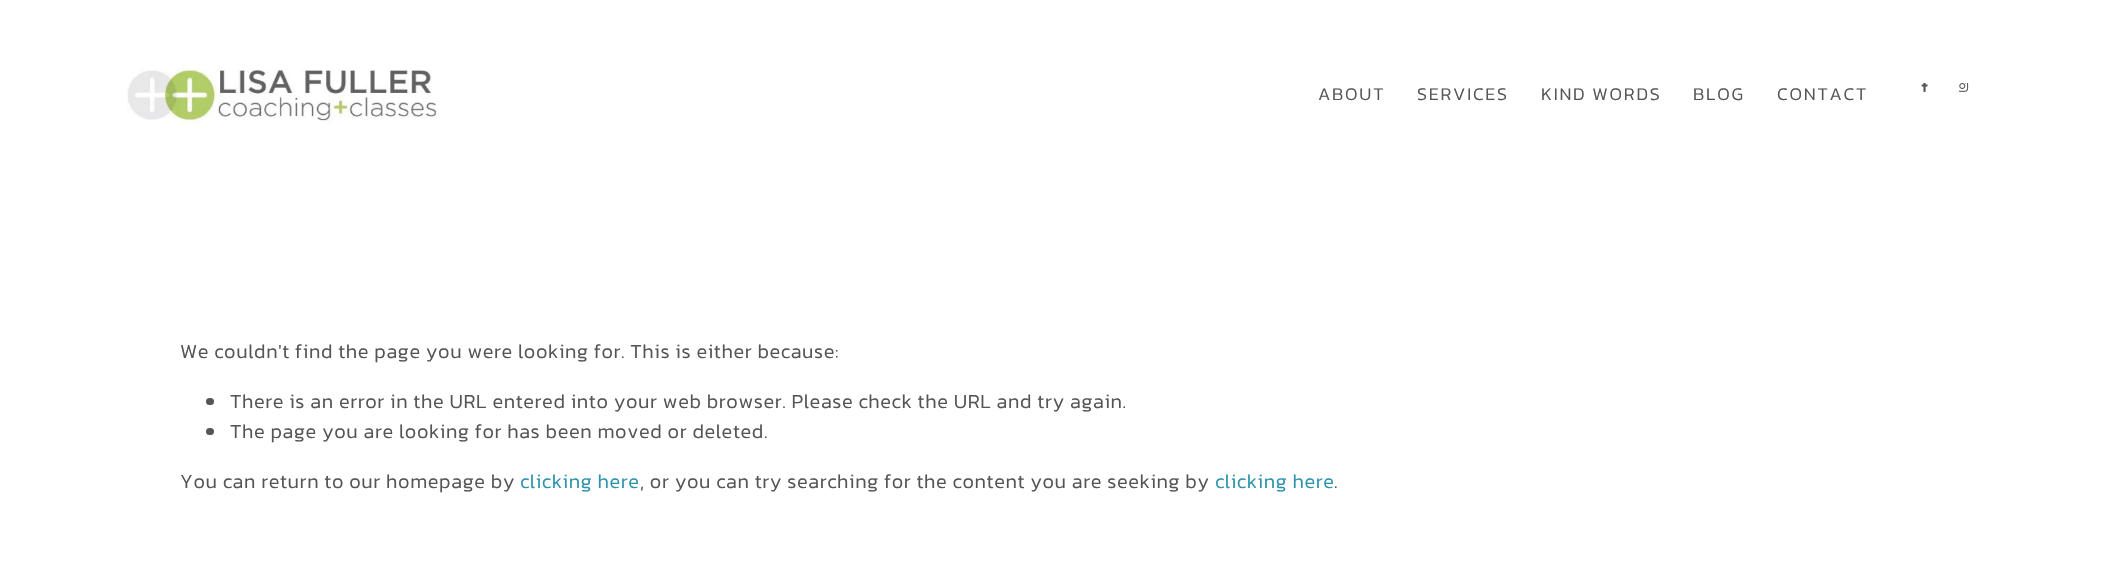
static SkFont makeFont(const char* family, int weight, float size, bool italic = false) {
  SkFontStyle style(weight, SkFontStyle::kNormal_Width,
    italic ? SkFontStyle::kItalic_Slant : SkFontStyle::kUpright_Slant);
  SkFont result(fontMgr->matchFamilyStyle(family, style), size);
  result.setSubpixel(true);
  return result;
}

static void spacedText(SkCanvas* c, const char* s, float x, float y, const SkFont& font, const SkPaint& ink, float letter, float word) {
  std::vector<SkGlyphID> glyphs(font.countText(s, strlen(s), SkTextEncoding::kUTF8));
  std::vector<float> xs(glyphs.size());
  font.textToGlyphs(s, strlen(s), SkTextEncoding::kUTF8, glyphs);
  font.getXPos(glyphs, xs, x);
  float extra = 0;
  for (size_t i = 0; i < glyphs.size(); i++) {
    xs[i] += extra;
    extra += letter + word * (glyphs[i] == font.unicharToGlyph(' '));
  }
  c->drawTextBlob(SkTextBlob::MakeFromPosHGlyphs(glyphs, xs, y, font), 0, 0, ink);
}

static void roundBox(SkCanvas* c, float l, float t, float r, float b, float radius, SkColor color) {
  SkPaint ink(SkColor4f::FromColor(color));
  ink.setAntiAlias(true);
  c->drawRoundRect(SkRect::MakeLTRB(l, t, r, b), radius, radius, ink);
}

static void picture(SkCanvas* c, const char* path, float l, float t, float r, float b) {
  auto image = SkImages::DeferredFromEncodedData(SkData::MakeFromFileName(path));
  c->drawImageRect(image, SkRect::MakeLTRB(l, t, r, b), SkSamplingOptions());
}

void draw(SkCanvas* c) {
  SkPaint paint;
  paint.setAntiAlias(true);
  c->clear(0xffffffff);
  picture(c, "img_01.png", 127, 69, 437, 126);
  SkFont face1 = makeFont("Kanit", 300, 18);
  paint.setColor(0xff555555);
  spacedText(c, "ABOUT", 1318, 100, face1, paint, 1.75f, 0);
  spacedText(c, "SERVICES", 1417, 100, face1, paint, 1.75f, 0);
  spacedText(c, "KIND WORDS", 1541, 100, face1, paint, 1.75f, 0);
  spacedText(c, "BLOG", 1693, 100, face1, paint, 1.75f, 0);
  spacedText(c, "CONTACT", 1777, 100, face1, paint, 1.75f, 0);
  picture(c, "img_02.png", 1921, 83, 1928, 92);
  picture(c, "img_03.png", 1959, 83, 1969, 92);
  SkFont face2 = makeFont("Kanit", 300, 20);
  spacedText(c, "We couldn't find the page you were looking for. This is either because:", 180, 358, face2, paint, 0.6f, 0);
  roundBox(c, 206, 398, 214, 405, 3.5f, 0xff555555);
  spacedText(c, "There is an error in the URL entered into your web browser. Please check the URL and try again.", 230, 408, face2, paint, 0.6f, 0);
  roundBox(c, 206, 428, 214, 435, 3.5f, 0xff555555);
  spacedText(c, "The page you are looking for has been moved or deleted.", 230, 438, face2, paint, 0.6f, 0);
  spacedText(c, "You can return to our homepage by", 180, 488, face2, paint, 0.6f, 0);
  paint.setColor(0xff2d93ad);
  spacedText(c, "clicking here", 520, 488, face2, paint, 0.6f, 0);
  paint.setColor(0xff555555);
  spacedText(c, ", or you can try searching for the content you are seeking by", 640, 488, face2, paint, 0.6f, 0);
  paint.setColor(0xff2d93ad);
  spacedText(c, "clicking here", 1215, 488, face2, paint, 0.6f, 0);
  paint.setColor(0xff555555);
  spacedText(c, ".", 1334, 488, face2, paint, 0.6f, 0);
}
